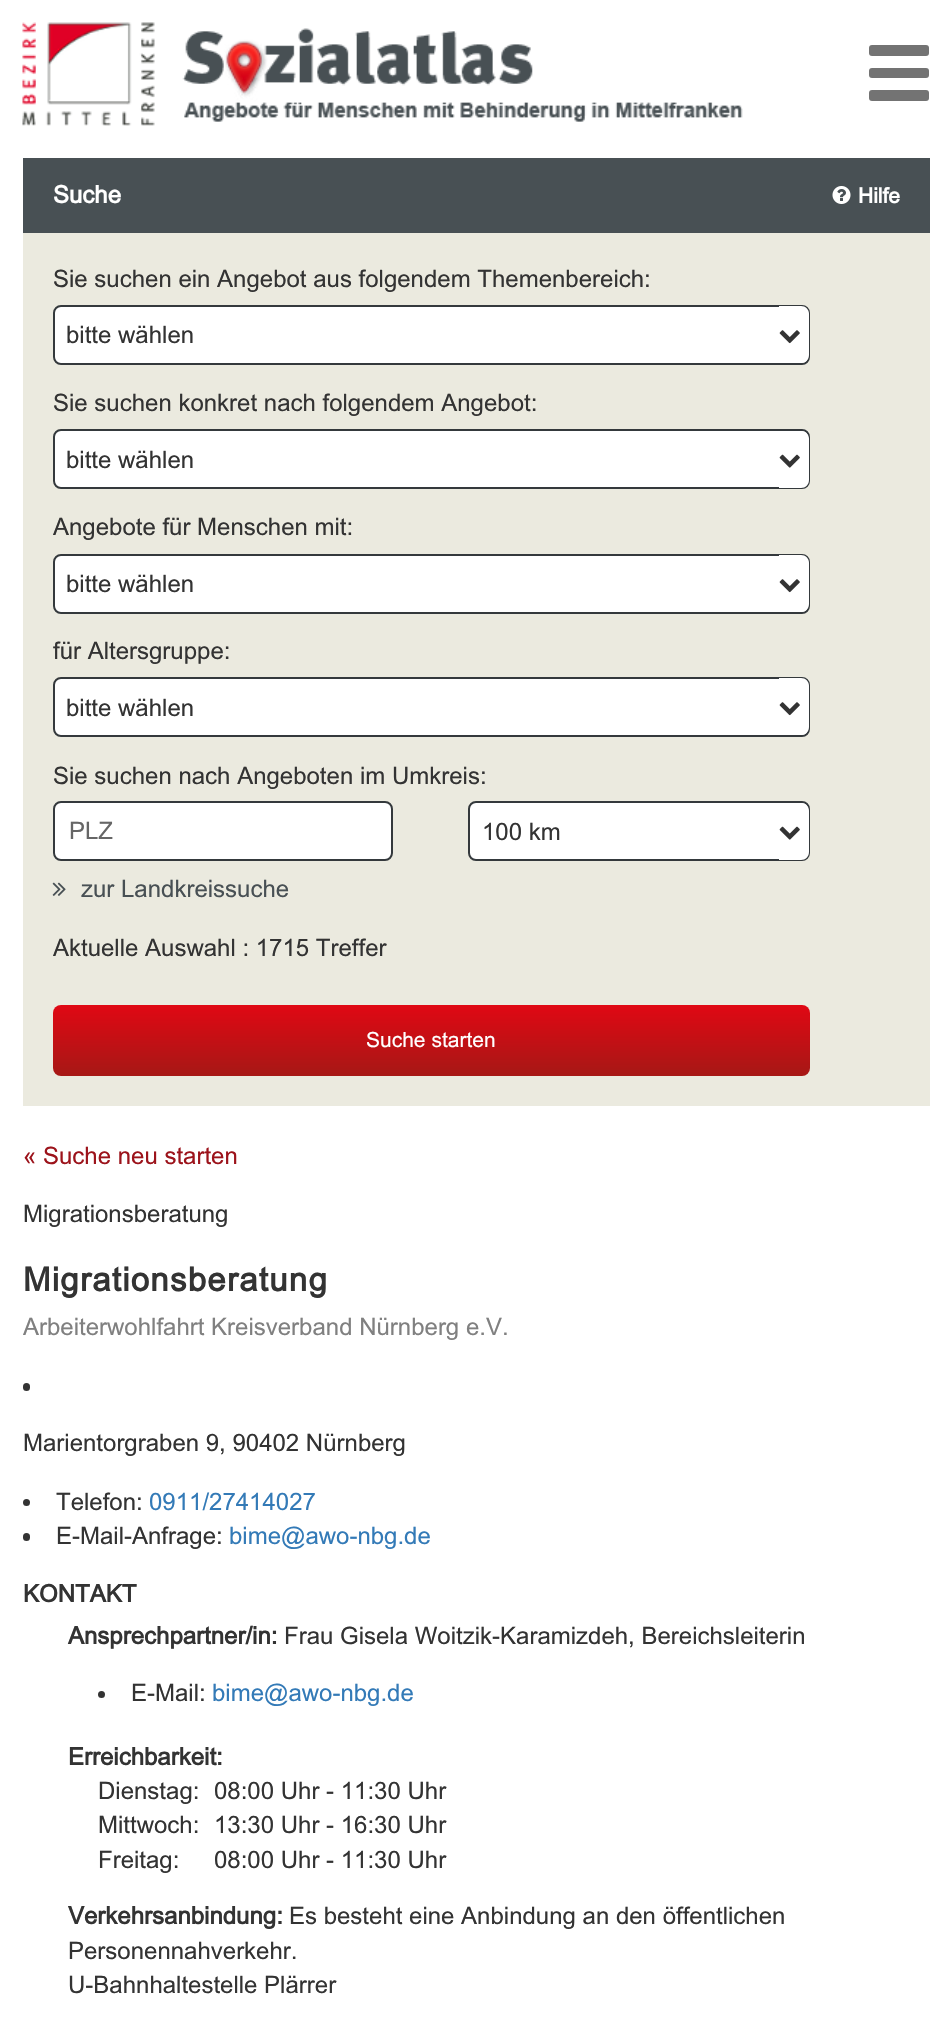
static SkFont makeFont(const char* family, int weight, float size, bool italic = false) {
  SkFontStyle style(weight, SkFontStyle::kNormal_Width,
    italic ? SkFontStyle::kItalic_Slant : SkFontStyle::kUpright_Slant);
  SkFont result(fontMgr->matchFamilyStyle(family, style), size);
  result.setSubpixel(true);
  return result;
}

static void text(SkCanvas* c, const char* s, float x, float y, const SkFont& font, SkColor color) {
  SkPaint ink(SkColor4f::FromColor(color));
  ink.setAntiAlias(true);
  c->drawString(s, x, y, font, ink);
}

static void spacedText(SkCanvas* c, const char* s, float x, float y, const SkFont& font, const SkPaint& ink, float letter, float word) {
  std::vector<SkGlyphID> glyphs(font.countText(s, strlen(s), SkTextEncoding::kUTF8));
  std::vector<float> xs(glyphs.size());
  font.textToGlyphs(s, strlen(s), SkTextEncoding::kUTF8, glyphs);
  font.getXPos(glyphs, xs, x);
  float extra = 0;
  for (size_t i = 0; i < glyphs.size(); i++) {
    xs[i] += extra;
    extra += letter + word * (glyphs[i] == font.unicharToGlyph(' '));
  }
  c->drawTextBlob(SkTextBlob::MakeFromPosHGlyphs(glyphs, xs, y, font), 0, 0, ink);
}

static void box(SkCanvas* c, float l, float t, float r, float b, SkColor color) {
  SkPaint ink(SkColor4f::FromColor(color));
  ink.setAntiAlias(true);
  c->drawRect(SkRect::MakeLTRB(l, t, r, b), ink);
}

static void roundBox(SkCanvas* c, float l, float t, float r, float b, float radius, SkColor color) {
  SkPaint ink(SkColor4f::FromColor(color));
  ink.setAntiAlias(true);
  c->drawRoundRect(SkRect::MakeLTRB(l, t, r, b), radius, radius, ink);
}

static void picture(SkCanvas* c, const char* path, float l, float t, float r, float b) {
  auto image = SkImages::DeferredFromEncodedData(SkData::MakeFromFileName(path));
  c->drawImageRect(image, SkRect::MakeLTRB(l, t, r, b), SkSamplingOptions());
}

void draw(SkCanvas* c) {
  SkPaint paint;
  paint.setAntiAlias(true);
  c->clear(0xffffffff);
  picture(c, "img_01.png", 22, 22, 155, 126);
  picture(c, "img_02.png", 182, 28, 743, 122);
  roundBox(c, 869, 45, 929, 56, 3, 0xff737373);
  roundBox(c, 869, 68, 929, 78, 3, 0xff737373);
  roundBox(c, 869, 90, 929, 101, 3, 0xff737373);
  box(c, 23, 233, 930, 1106, 0xffebeadf);
  box(c, 23, 158, 930, 233, 0xff485054);
  SkFont face1 = makeFont("Arial", 700, 24);
  text(c, "Suche", 53, 203, face1, 0xffffffff);
  picture(c, "img_03.png", 832, 186, 851, 204);
  SkFont face2 = makeFont("Arial", 700, 21);
  text(c, "Hilfe", 858, 203, face2, 0xffffffff);
  SkFont face3 = makeFont("Arial", 400, 24);
  text(c, "Sie suchen ein Angebot aus folgendem Themenbereich:", 53, 287, face3, 0xff333333);
  paint.setColor(0xffffffff);
  c->drawRoundRect(SkRect::MakeLTRB(54, 306, 809, 364), 7, 7, paint);
  paint.setStyle(SkPaint::kStroke_Style);
  paint.setStrokeWidth(2);
  paint.setColor(0xff34393c);
  c->drawRoundRect(SkRect::MakeLTRB(54, 306, 809, 364), 7, 7, paint);
  text(c, "bitte wählen", 66, 343, face3, 0xff333333);
  paint.setStyle(SkPaint::kFill_Style);
  paint.setColor(0xffffffff);
  c->drawPath(SkPathBuilder().moveTo(779, 306).lineTo(801, 306).cubicTo(805.5f, 306, 809, 309.5f, 809, 314).lineTo(809, 355).cubicTo(809, 359.5f, 805.5f, 363, 801, 363).lineTo(779, 363).close().detach(), paint);
  picture(c, "img_04.png", 779, 330, 800, 344);
  text(c, "Sie suchen konkret nach folgendem Angebot:", 53, 411, face3, 0xff333333);
  c->drawRoundRect(SkRect::MakeLTRB(54, 430, 809, 488), 7, 7, paint);
  paint.setStyle(SkPaint::kStroke_Style);
  paint.setColor(0xff34393c);
  c->drawRoundRect(SkRect::MakeLTRB(54, 430, 809, 488), 7, 7, paint);
  text(c, "bitte wählen", 66, 468, face3, 0xff333333);
  paint.setStyle(SkPaint::kFill_Style);
  paint.setColor(0xffffffff);
  c->drawPath(SkPathBuilder().moveTo(779, 431).lineTo(801, 431).cubicTo(805.5f, 431, 809, 434.5f, 809, 439).lineTo(809, 480).cubicTo(809, 484.5f, 805.5f, 488, 801, 488).lineTo(779, 488).close().detach(), paint);
  picture(c, "img_05.png", 779, 454, 800, 468);
  text(c, "Angebote für Menschen mit:", 53, 535, face3, 0xff333333);
  c->drawRoundRect(SkRect::MakeLTRB(54, 555, 809, 613), 7, 7, paint);
  paint.setStyle(SkPaint::kStroke_Style);
  paint.setColor(0xff34393c);
  c->drawRoundRect(SkRect::MakeLTRB(54, 555, 809, 613), 7, 7, paint);
  text(c, "bitte wählen", 66, 592, face3, 0xff333333);
  paint.setStyle(SkPaint::kFill_Style);
  paint.setColor(0xffffffff);
  c->drawPath(SkPathBuilder().moveTo(779, 555).lineTo(801, 555).cubicTo(805.5f, 555, 809, 558.5f, 809, 563).lineTo(809, 604).cubicTo(809, 608.5f, 805.5f, 612, 801, 612).lineTo(779, 612).close().detach(), paint);
  picture(c, "img_04.png", 779, 579, 800, 593);
  text(c, "für Altersgruppe:", 53, 659, face3, 0xff333333);
  c->drawRoundRect(SkRect::MakeLTRB(54, 678, 809, 736), 7, 7, paint);
  paint.setStyle(SkPaint::kStroke_Style);
  paint.setColor(0xff34393c);
  c->drawRoundRect(SkRect::MakeLTRB(54, 678, 809, 736), 7, 7, paint);
  text(c, "bitte wählen", 66, 716, face3, 0xff333333);
  paint.setStyle(SkPaint::kFill_Style);
  paint.setColor(0xffffffff);
  c->drawPath(SkPathBuilder().moveTo(779, 678).lineTo(801, 678).cubicTo(805.5f, 678, 809, 681.5f, 809, 686).lineTo(809, 727).cubicTo(809, 731.5f, 805.5f, 735, 801, 735).lineTo(779, 735).close().detach(), paint);
  picture(c, "img_04.png", 779, 702, 800, 716);
  text(c, "Sie suchen nach Angeboten im Umkreis:", 53, 784, face3, 0xff333333);
  c->drawRoundRect(SkRect::MakeLTRB(54, 802, 392, 860), 7, 7, paint);
  paint.setStyle(SkPaint::kStroke_Style);
  paint.setColor(0xff34393c);
  c->drawRoundRect(SkRect::MakeLTRB(54, 802, 392, 860), 7, 7, paint);
  text(c, "PLZ", 69, 839, face3, 0xff666666);
  paint.setStyle(SkPaint::kFill_Style);
  paint.setColor(0xffffffff);
  c->drawRoundRect(SkRect::MakeLTRB(469, 802, 809, 860), 7, 7, paint);
  paint.setStyle(SkPaint::kStroke_Style);
  paint.setColor(0xff34393c);
  c->drawRoundRect(SkRect::MakeLTRB(469, 802, 809, 860), 7, 7, paint);
  text(c, "100 km", 482, 840, face3, 0xff333333);
  paint.setStyle(SkPaint::kFill_Style);
  paint.setColor(0xffffffff);
  c->drawPath(SkPathBuilder().moveTo(779, 803).lineTo(801, 803).cubicTo(805.5f, 803, 809, 806.5f, 809, 811).lineTo(809, 852).cubicTo(809, 856.5f, 805.5f, 860, 801, 860).lineTo(779, 860).close().detach(), paint);
  picture(c, "img_05.png", 779, 826, 800, 840);
  picture(c, "img_06.png", 52, 882, 66, 896);
  text(c, "zur Landkreissuche", 81, 897, face3, 0xff485054);
  text(c, "Aktuelle Auswahl : 1715 Treffer", 53, 956, face3, 0xff333333);
  {
    const SkColor colors[] = {0xffa61815, 0xffe00814};
    const float stops[] = {0, 1};
    const SkPoint ends[] = {{431, 1076}, {431, 1005}};
    paint.setShader(SkGradientShader::MakeLinear(ends, colors, stops, 2, SkTileMode::kClamp));
    paint.setAlpha(255);
  }
  c->drawRoundRect(SkRect::MakeLTRB(53, 1005, 810, 1076), 8, 8, paint);
  SkFont face4 = makeFont("Arial", 400, 21);
  text(c, "Suche starten", 366, 1047, face4, 0xffffffff);
  text(c, "« Suche neu starten", 23, 1164, face3, 0xff9c131b);
  text(c, "Migrationsberatung", 23, 1222, face3, 0xff333333);
  SkFont face5 = makeFont("Arial", 700, 33);
  paint.setShader(nullptr);
  paint.setColor(0xff333333);
  spacedText(c, "Migrationsberatung", 23, 1291, face5, paint, 1.25f, 0);
  text(c, "Arbeiterwohlfahrt Kreisverband Nürnberg e.V.", 23, 1335, face3, 0xff808080);
  roundBox(c, 23, 1383, 30, 1391, 3.5f, 0xff333333);
  text(c, "Marientorgraben 9, 90402 Nürnberg", 23, 1451, face3, 0xff333333);
  c->drawCircle(26.5f, 1502.5f, 3.5f, paint);
  text(c, "Telefon:", 56, 1510, face3, 0xff333333);
  text(c, "0911/27414027", 149, 1510, face3, 0xff337ab7);
  roundBox(c, 23, 1533, 30, 1541, 3.5f, 0xff333333);
  text(c, "E-Mail-Anfrage:", 56, 1544, face3, 0xff333333);
  text(c, "bime@awo-nbg.de", 229, 1544, face3, 0xff337ab7);
  text(c, "KONTAKT", 23, 1602, face1, 0xff333333);
  text(c, "Ansprechpartner/in:", 68, 1644, face1, 0xff333333);
  text(c, "Frau Gisela Woitzik-Karamizdeh, Bereichsleiterin", 284, 1644, face3, 0xff333333);
  c->drawCircle(101.5f, 1694.5f, 3.5f, paint);
  text(c, "E-Mail:", 131, 1701, face3, 0xff333333);
  text(c, "bime@awo-nbg.de", 212, 1701, face3, 0xff337ab7);
  text(c, "Erreichbarkeit:", 68, 1765, face1, 0xff333333);
  text(c, "Dienstag:", 98, 1799, face3, 0xff333333);
  text(c, "08:00 Uhr - 11:30 Uhr", 214, 1799, face3, 0xff333333);
  text(c, "Mittwoch:", 98, 1833, face3, 0xff333333);
  text(c, "13:30 Uhr - 16:30 Uhr", 214, 1833, face3, 0xff333333);
  text(c, "Freitag:", 98, 1868, face3, 0xff333333);
  text(c, "08:00 Uhr - 11:30 Uhr", 214, 1868, face3, 0xff333333);
  text(c, "Verkehrsanbindung:", 68, 1924, face1, 0xff333333);
  text(c, "Es besteht eine Anbindung an den öffentlichen", 289, 1924, face3, 0xff333333);
  text(c, "Personennahverkehr.", 68, 1959, face3, 0xff333333);
  text(c, "U-Bahnhaltestelle Plärrer", 68, 1993, face3, 0xff333333);
}
